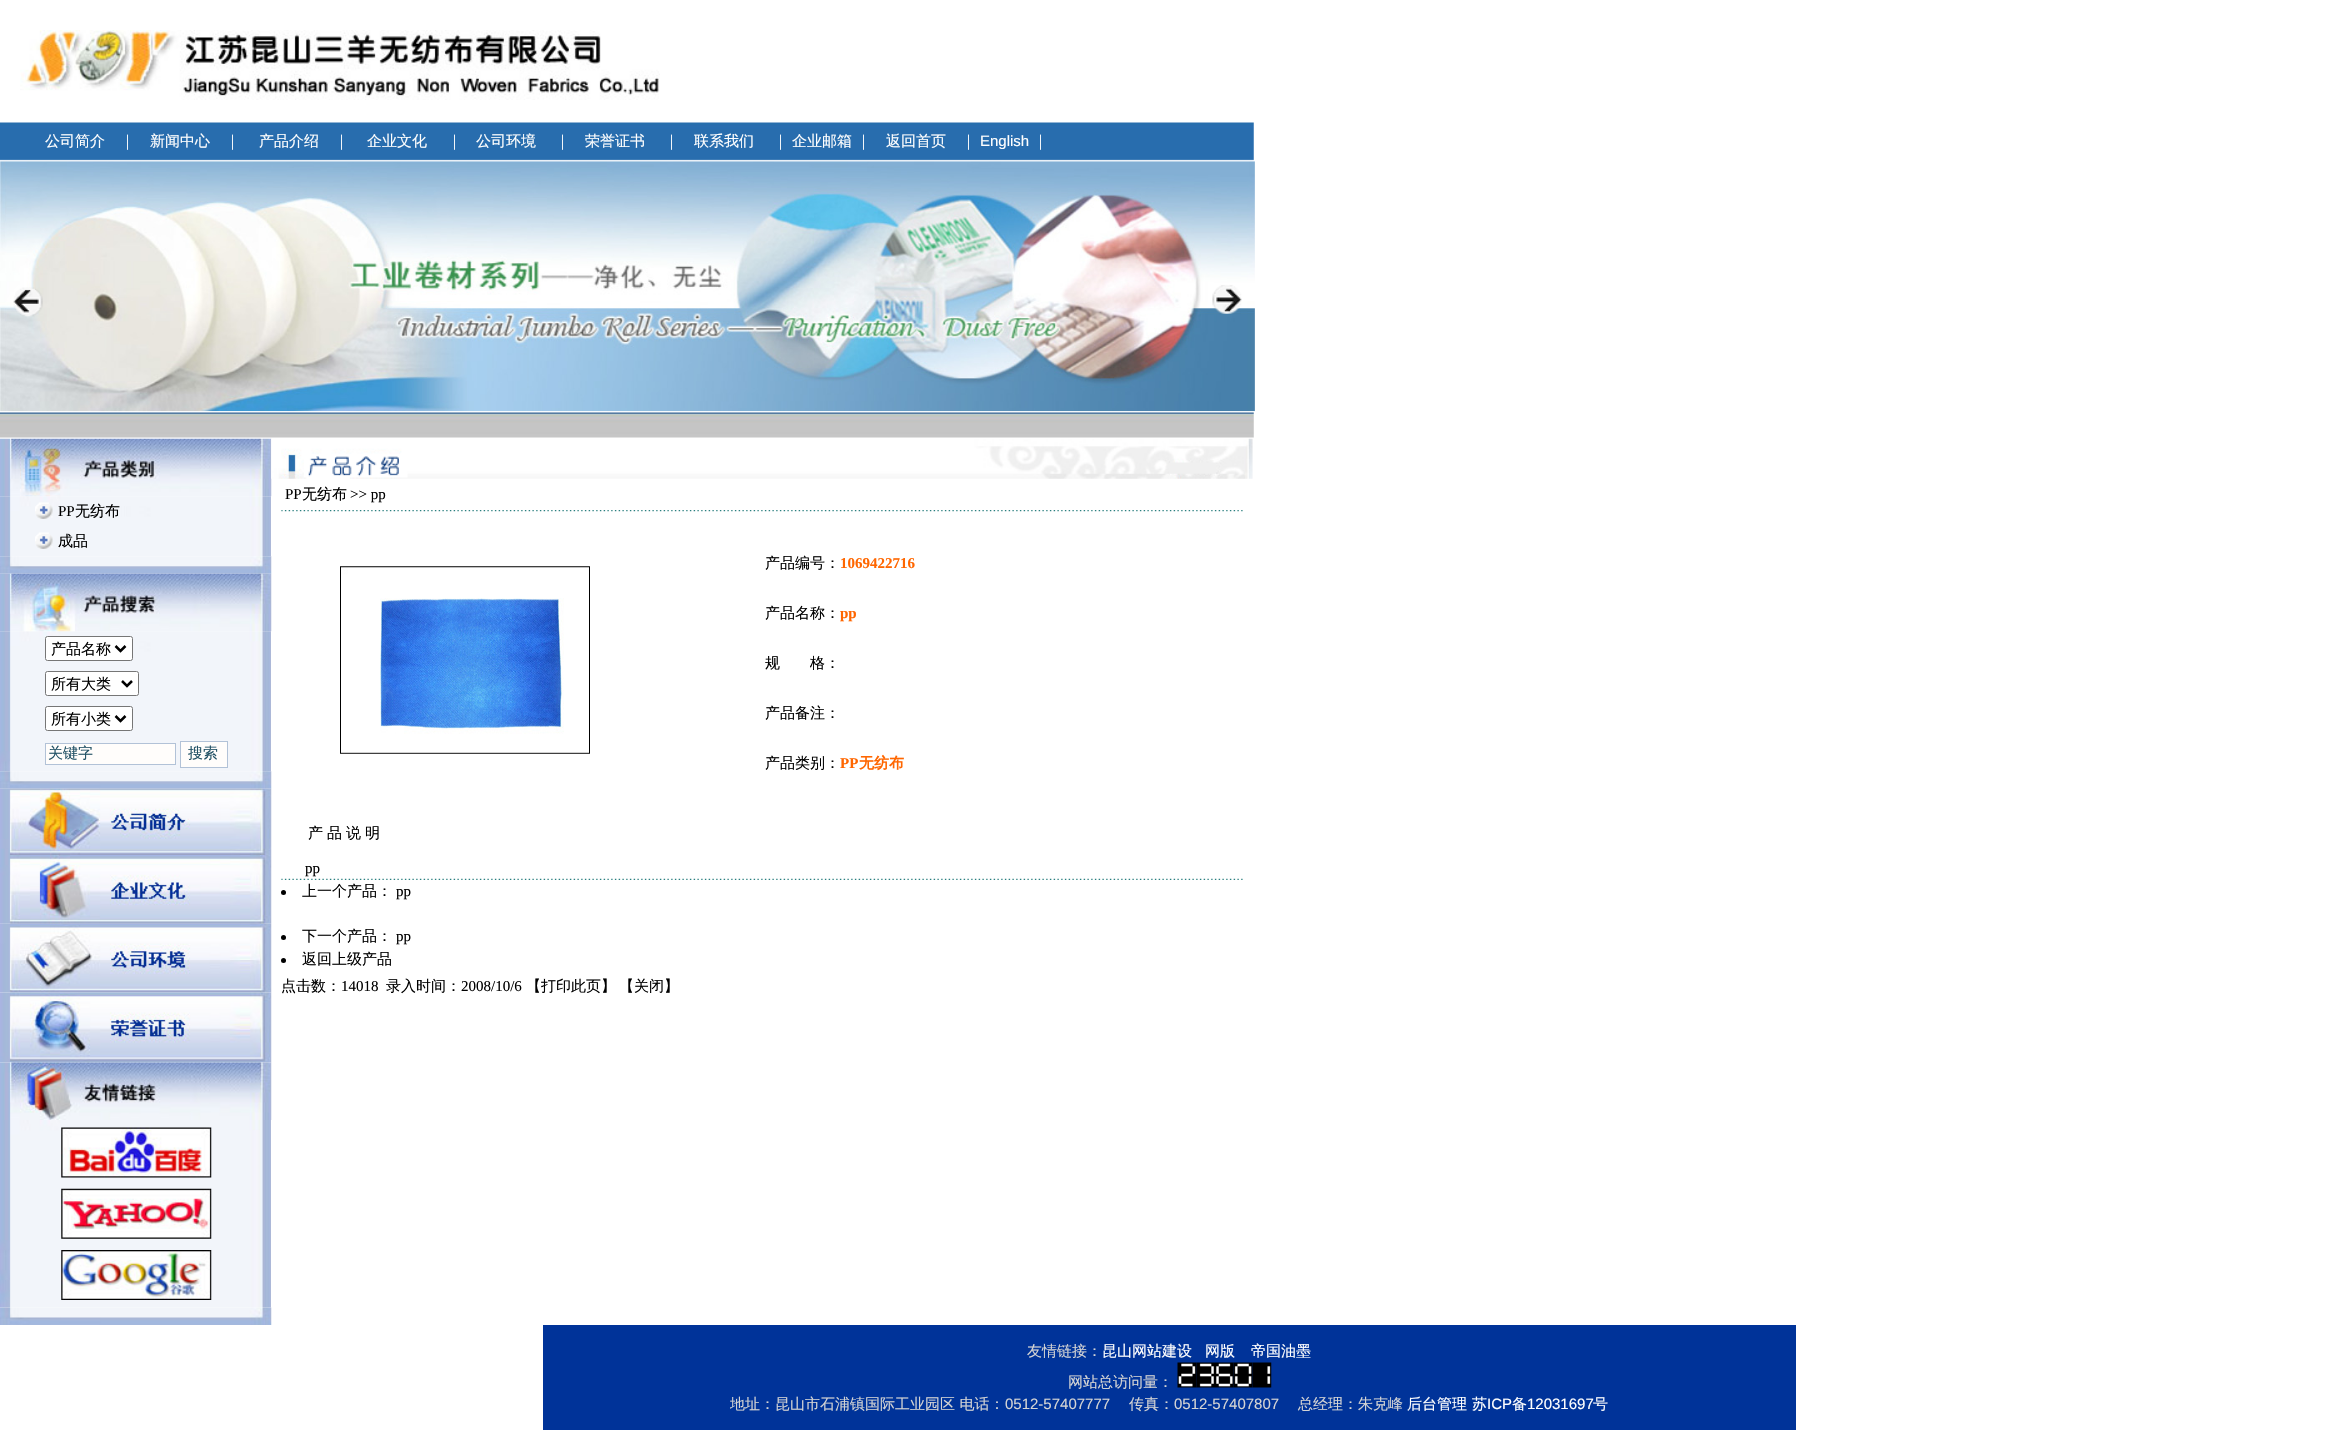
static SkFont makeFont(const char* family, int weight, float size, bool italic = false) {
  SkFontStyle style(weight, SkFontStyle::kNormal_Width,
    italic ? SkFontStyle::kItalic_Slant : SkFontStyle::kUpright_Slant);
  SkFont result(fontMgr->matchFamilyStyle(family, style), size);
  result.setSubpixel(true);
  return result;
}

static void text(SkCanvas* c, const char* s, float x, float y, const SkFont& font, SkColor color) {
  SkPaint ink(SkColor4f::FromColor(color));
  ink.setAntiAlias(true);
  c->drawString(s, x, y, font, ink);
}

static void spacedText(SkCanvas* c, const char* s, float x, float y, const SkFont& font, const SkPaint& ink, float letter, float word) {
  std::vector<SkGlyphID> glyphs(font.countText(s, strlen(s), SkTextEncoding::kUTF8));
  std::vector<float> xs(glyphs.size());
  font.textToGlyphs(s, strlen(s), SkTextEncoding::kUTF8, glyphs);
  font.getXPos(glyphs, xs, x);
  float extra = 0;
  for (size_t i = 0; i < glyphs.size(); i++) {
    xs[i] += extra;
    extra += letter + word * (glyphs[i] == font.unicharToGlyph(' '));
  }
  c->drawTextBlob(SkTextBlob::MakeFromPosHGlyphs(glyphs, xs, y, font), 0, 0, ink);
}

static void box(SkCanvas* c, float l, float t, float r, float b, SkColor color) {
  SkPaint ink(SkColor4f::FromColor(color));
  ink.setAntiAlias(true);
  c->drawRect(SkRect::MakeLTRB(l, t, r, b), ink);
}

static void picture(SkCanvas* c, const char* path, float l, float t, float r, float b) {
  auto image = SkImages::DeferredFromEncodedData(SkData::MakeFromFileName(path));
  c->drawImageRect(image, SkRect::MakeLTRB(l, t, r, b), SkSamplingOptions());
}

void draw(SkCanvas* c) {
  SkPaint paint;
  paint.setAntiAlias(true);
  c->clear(0xffffffff);
  picture(c, "img_01.png", 20, 30, 660, 100);
  picture(c, "img_02.png", 0, 122, 1254, 161);
  SkFont face1 = makeFont("WenQuanYi Zen Hei", 500, 15);
  text(c, "公司简介", 45, 146, face1, 0xffffffff);
  text(c, "｜", 120, 146, face1, 0xffffffff);
  text(c, "新闻中心", 150, 146, face1, 0xffffffff);
  text(c, "｜", 225, 146, face1, 0xffffffff);
  text(c, "产品介绍", 259, 146, face1, 0xffffffff);
  text(c, "｜", 334, 146, face1, 0xffffffff);
  text(c, "企业文化", 367, 146, face1, 0xffffffff);
  text(c, "｜", 447, 146, face1, 0xffffffff);
  text(c, "公司环境", 476, 146, face1, 0xffffffff);
  text(c, "｜", 555, 146, face1, 0xffffffff);
  text(c, "荣誉证书", 585, 146, face1, 0xffffffff);
  text(c, "｜", 664, 146, face1, 0xffffffff);
  text(c, "联系我们", 694, 146, face1, 0xffffffff);
  text(c, "｜", 773, 146, face1, 0xffffffff);
  text(c, "企业邮箱", 792, 146, face1, 0xffffffff);
  text(c, "｜", 856, 146, face1, 0xffffffff);
  text(c, "返回首页", 886, 146, face1, 0xffffffff);
  text(c, "｜", 961, 146, face1, 0xffffffff);
  SkFont face2 = makeFont("Liberation Sans", 400, 15);
  text(c, "English", 980, 146, face2, 0xffffffff);
  text(c, "｜", 1033, 146, face1, 0xffffffff);
  picture(c, "img_03.png", 0, 161, 1255, 412);
  picture(c, "img_04.png", 0, 412, 1254, 438);
  picture(c, "img_06.png", 0, 496, 271, 557);
  picture(c, "img_05.png", 0, 438, 272, 497);
  picture(c, "img_07.png", 35, 502, 53, 519);
  SkFont face3 = makeFont("Liberation Serif", 400, 15);
  text(c, "PP", 58, 516, face3, 0xff000000);
  text(c, "无纺布", 75, 516, face1, 0xff000000);
  picture(c, "img_08.png", 35, 532, 53, 549);
  text(c, "成品", 58, 546, face1, 0xff000000);
  picture(c, "img_09.png", 0, 556, 272, 574);
  picture(c, "img_11.png", 0, 631, 271, 772);
  picture(c, "img_10.png", 0, 573, 272, 632);
  paint.setColor(0xffffffff);
  c->drawRoundRect(SkRect::MakeLTRB(45.5f, 636.5f, 132.5f, 660.5f), 2, 2, paint);
  paint.setStyle(SkPaint::kStroke_Style);
  paint.setStrokeWidth(1);
  paint.setColor(0xff767676);
  c->drawRoundRect(SkRect::MakeLTRB(45.5f, 636.5f, 132.5f, 660.5f), 2, 2, paint);
  paint.setStrokeWidth(2.5f);
  paint.setColor(0xff000000);
  c->drawPath(SkPathBuilder().moveTo(115.5f, 646).lineTo(120.5f, 651).lineTo(125.5f, 646).detach(), paint);
  text(c, "产品名称", 51, 654, face1, 0xff000000);
  paint.setStyle(SkPaint::kFill_Style);
  paint.setColor(0xffffffff);
  c->drawRoundRect(SkRect::MakeLTRB(45.5f, 671.5f, 138.5f, 695.5f), 2, 2, paint);
  paint.setStyle(SkPaint::kStroke_Style);
  paint.setStrokeWidth(1);
  paint.setColor(0xff767676);
  c->drawRoundRect(SkRect::MakeLTRB(45.5f, 671.5f, 138.5f, 695.5f), 2, 2, paint);
  paint.setStrokeWidth(2.5f);
  paint.setColor(0xff000000);
  c->drawPath(SkPathBuilder().moveTo(122, 681).lineTo(127, 686).lineTo(132, 681).detach(), paint);
  text(c, "所有大类", 51, 689, face1, 0xff000000);
  paint.setStyle(SkPaint::kFill_Style);
  paint.setColor(0xffffffff);
  c->drawRoundRect(SkRect::MakeLTRB(45.5f, 706.5f, 132.5f, 730.5f), 2, 2, paint);
  paint.setStyle(SkPaint::kStroke_Style);
  paint.setStrokeWidth(1);
  paint.setColor(0xff767676);
  c->drawRoundRect(SkRect::MakeLTRB(45.5f, 706.5f, 132.5f, 730.5f), 2, 2, paint);
  paint.setStrokeWidth(2.5f);
  paint.setColor(0xff000000);
  c->drawPath(SkPathBuilder().moveTo(115.5f, 716).lineTo(120.5f, 721).lineTo(125.5f, 716).detach(), paint);
  text(c, "所有小类", 51, 724, face1, 0xff000000);
  paint.setStyle(SkPaint::kFill_Style);
  paint.setColor(0xfffffdfb);
  c->drawRect(SkRect::MakeLTRB(45.5f, 743.5f, 175.5f, 764.5f), paint);
  paint.setStyle(SkPaint::kStroke_Style);
  paint.setStrokeWidth(1);
  paint.setColor(0xffb2c2d7);
  c->drawRect(SkRect::MakeLTRB(45.5f, 743.5f, 175.5f, 764.5f), paint);
  text(c, "关键字", 48, 758, face1, 0xff205064);
  paint.setStyle(SkPaint::kFill_Style);
  paint.setColor(0xfffffdfb);
  c->drawRect(SkRect::MakeLTRB(180.5f, 741.5f, 227.5f, 767.5f), paint);
  paint.setStyle(SkPaint::kStroke_Style);
  paint.setColor(0xffb2c2d7);
  c->drawRect(SkRect::MakeLTRB(180.5f, 741.5f, 227.5f, 767.5f), paint);
  text(c, "搜索", 188, 758, face1, 0xff205064);
  picture(c, "img_12.png", 0, 771, 272, 789);
  picture(c, "img_13.png", 0, 788, 272, 855);
  picture(c, "img_14.png", 0, 855, 272, 924);
  picture(c, "img_15.png", 0, 923, 272, 993);
  picture(c, "img_16.png", 0, 992, 272, 1063);
  picture(c, "img_17.png", 0, 1062, 272, 1120);
  picture(c, "img_18.png", 0, 1120, 271, 1308);
  picture(c, "img_19.png", 61, 1127, 212, 1178);
  picture(c, "img_20.png", 61, 1188, 212, 1239);
  picture(c, "img_21.png", 61, 1250, 212, 1300);
  picture(c, "img_22.png", 0, 1307, 272, 1325);
  picture(c, "img_23.png", 271, 438, 1253, 479);
  text(c, "PP", 285, 499, face3, 0xff000000);
  text(c, "无纺布", 302, 499, face1, 0xff000000);
  text(c, ">> pp", 350, 499, face3, 0xff000000);
  picture(c, "img_24.png", 281, 510, 1243, 512);
  text(c, "产品编号：", 765, 568, face1, 0xff000000);
  SkFont face4 = makeFont("Liberation Serif", 700, 15);
  text(c, "1069422716", 840, 568, face4, 0xffff6600);
  picture(c, "img_25.png", 340, 566, 590, 754);
  text(c, "产品名称：", 765, 618, face1, 0xff000000);
  text(c, "pp", 840, 618, face4, 0xffff6600);
  text(c, "规　　格：", 765, 668, face1, 0xff000000);
  text(c, "产品备注：", 765, 718, face1, 0xff000000);
  text(c, "产品类别：", 765, 768, face1, 0xff000000);
  text(c, "PP", 840, 768, face4, 0xffff6600);
  SkFont face5 = makeFont("WenQuanYi Zen Hei", 700, 15);
  text(c, "无纺布", 859, 768, face5, 0xffff6600);
  paint.setStyle(SkPaint::kFill_Style);
  paint.setColor(0xff000000);
  spacedText(c, "产 品 说 明", 308, 838, face1, paint, 0, -0.5f);
  text(c, "pp", 305, 873, face3, 0xff000000);
  picture(c, "img_26.png", 281, 878, 1243, 880);
  c->drawCircle(283.5f, 892.5f, 2.5f, paint);
  text(c, "上一个产品：", 302, 896, face1, 0xff000000);
  text(c, "pp", 396, 896, face3, 0xff000000);
  c->drawCircle(283.5f, 937.5f, 2.5f, paint);
  text(c, "下一个产品：", 302, 941, face1, 0xff000000);
  text(c, "pp", 396, 941, face3, 0xff000000);
  c->drawCircle(283.5f, 960.5f, 2.5f, paint);
  text(c, "返回上级产品", 302, 964, face1, 0xff000000);
  text(c, "点击数：", 281, 991, face1, 0xff000000);
  text(c, "14018", 341, 991, face3, 0xff000000);
  text(c, "录入时间：", 386, 991, face1, 0xff000000);
  text(c, "2008/10/6", 461, 991, face3, 0xff000000);
  text(c, "【打印此页】", 526, 991, face1, 0xff000000);
  text(c, "【关闭】", 619, 991, face1, 0xff000000);
  box(c, 543, 1325, 1796, 1430, 0xff003399);
  text(c, "友情链接：", 1027, 1356, face1, 0xffd4d4d4);
  text(c, "昆山网站建设", 1102, 1356, face1, 0xffffffff);
  text(c, "网版", 1205, 1356, face1, 0xffffffff);
  text(c, "帝国油墨", 1251, 1356, face1, 0xffffffff);
  text(c, "网站总访问量：", 1068, 1387, face1, 0xffd4d4d4);
  picture(c, "img_27.png", 1177, 1362, 1197, 1388);
  picture(c, "img_28.png", 1196, 1362, 1215, 1388);
  picture(c, "img_29.png", 1215, 1362, 1234, 1388);
  picture(c, "img_30.png", 1233, 1362, 1253, 1388);
  picture(c, "img_31.png", 1252, 1362, 1272, 1388);
  text(c, "地址：昆山市石浦镇国际工业园区 电话：", 730, 1409, face1, 0xffd4d4d4);
  text(c, "0512-57407777", 1005, 1409, face2, 0xffd4d4d4);
  text(c, "传真：", 1129, 1409, face1, 0xffd4d4d4);
  text(c, "0512-57407807", 1174, 1409, face2, 0xffd4d4d4);
  text(c, "总经理：朱克峰", 1298, 1409, face1, 0xffd4d4d4);
  text(c, "后台管理", 1407, 1409, face1, 0xffffffff);
  text(c, "苏", 1472, 1409, face1, 0xffffffff);
  text(c, "ICP", 1487, 1409, face2, 0xffffffff);
  text(c, "备", 1512, 1409, face1, 0xffffffff);
  text(c, "12031697", 1527, 1409, face2, 0xffffffff);
  text(c, "号", 1593, 1409, face1, 0xffffffff);
}
